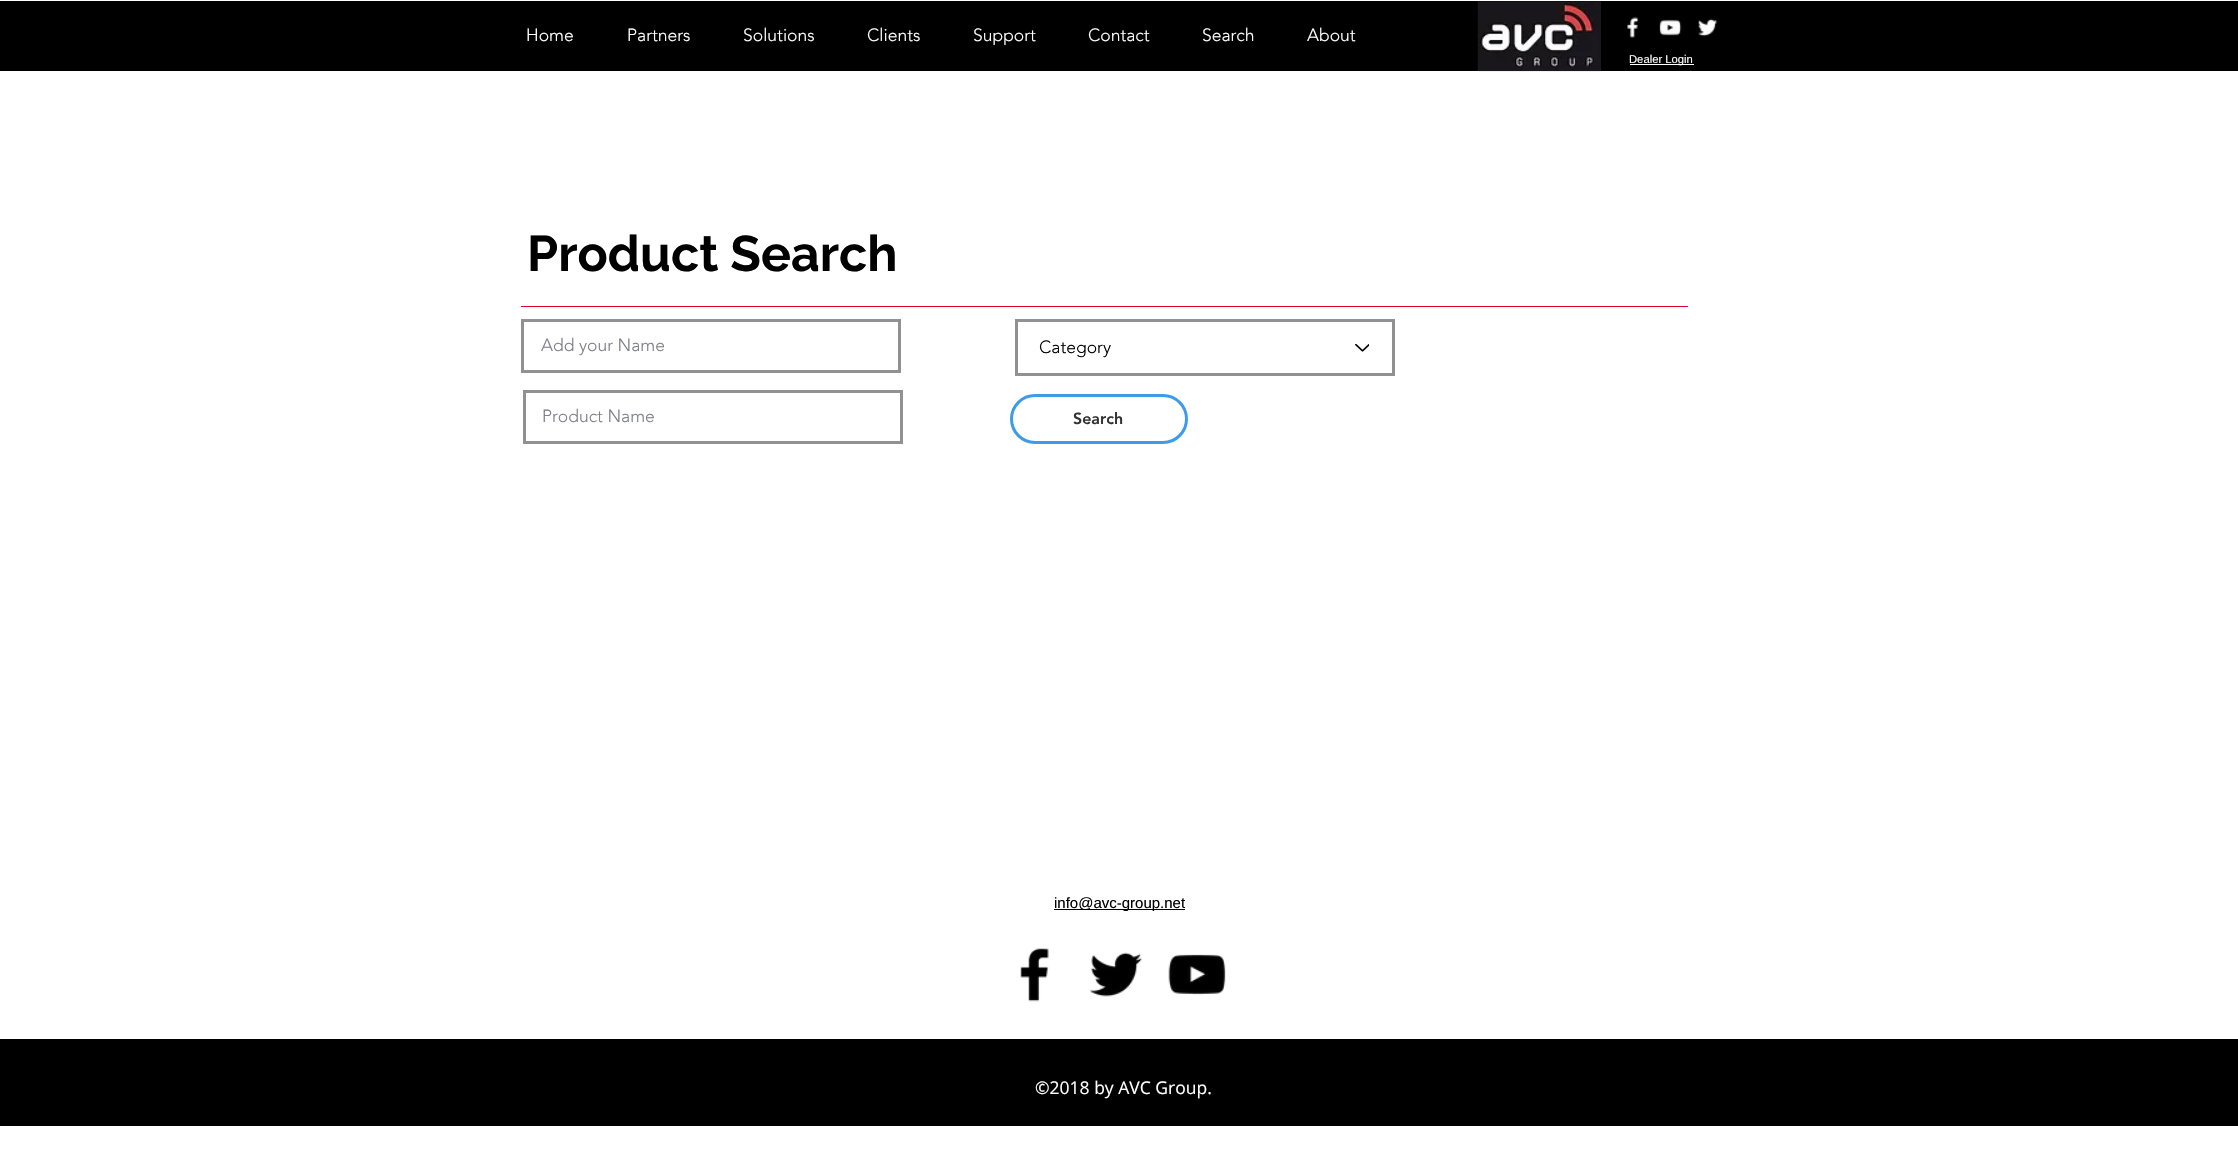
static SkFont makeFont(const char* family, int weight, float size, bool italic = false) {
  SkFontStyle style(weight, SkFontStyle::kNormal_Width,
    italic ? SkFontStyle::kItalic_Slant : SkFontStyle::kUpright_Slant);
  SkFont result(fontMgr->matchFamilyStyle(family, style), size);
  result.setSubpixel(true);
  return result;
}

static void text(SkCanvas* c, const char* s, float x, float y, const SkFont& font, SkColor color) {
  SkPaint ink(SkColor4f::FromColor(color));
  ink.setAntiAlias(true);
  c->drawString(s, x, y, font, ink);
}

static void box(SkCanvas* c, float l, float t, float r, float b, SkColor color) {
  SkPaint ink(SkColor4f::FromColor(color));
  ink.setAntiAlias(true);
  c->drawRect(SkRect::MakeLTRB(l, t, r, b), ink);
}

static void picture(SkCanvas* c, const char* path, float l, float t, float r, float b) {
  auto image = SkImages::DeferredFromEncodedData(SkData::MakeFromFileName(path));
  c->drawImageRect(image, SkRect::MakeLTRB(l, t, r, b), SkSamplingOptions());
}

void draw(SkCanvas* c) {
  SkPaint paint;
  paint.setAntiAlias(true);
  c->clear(0xffffffff);
  box(c, 0, 1, 2238, 71, 0xff000000);
  SkFont face1 = makeFont("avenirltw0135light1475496", 300, 17.5f);
  text(c, "Home", 526, 41, face1, 0xffffffff);
  text(c, "Partners", 627, 41, face1, 0xffffffff);
  text(c, "Solutions", 743, 41, face1, 0xffffffff);
  text(c, "Clients", 867, 41, face1, 0xffffffff);
  text(c, "Support", 973, 41, face1, 0xffffffff);
  text(c, "Contact", 1088, 41, face1, 0xffffffff);
  text(c, "Search", 1202, 41, face1, 0xffffffff);
  text(c, "About", 1307, 41, face1, 0xffffffff);
  picture(c, "img_01.png", 1477, 1, 1601, 72);
  picture(c, "img_02.png", 1627, 17, 1639, 38);
  picture(c, "img_03.png", 1659, 19, 1682, 36);
  picture(c, "img_04.png", 1698, 18, 1718, 37);
  box(c, 1630, 64, 1694, 65, 0xffffffff);
  SkFont face2 = makeFont("Liberation Sans", 400, 11.25f);
  text(c, "Dealer Login", 1629, 63, face2, 0xffffffff);
  SkFont face3 = makeFont("Raleway", 700, 50);
  text(c, "Product Search", 527, 271, face3, 0xff000000);
  box(c, 521, 306, 1688, 307, 0xffda0533);
  paint.setStyle(SkPaint::kStroke_Style);
  paint.setStrokeWidth(3);
  paint.setColor(0xff919191);
  c->drawRect(SkRect::MakeLTRB(522.5f, 320.5f, 899.5f, 371.5f), paint);
  text(c, "Add your Name", 541, 351, face1, 0xff7f808a);
  c->drawRect(SkRect::MakeLTRB(1016.5f, 320.5f, 1393.5f, 374.5f), paint);
  text(c, "Category", 1039, 353, face1, 0xff000000);
  picture(c, "img_05.png", 1355, 344, 1369, 352);
  c->drawRect(SkRect::MakeLTRB(524.5f, 391.5f, 901.5f, 442.5f), paint);
  text(c, "Product Name", 542, 422, face1, 0xff7f808a);
  paint.setColor(0xff3d9be9);
  c->drawRoundRect(SkRect::MakeLTRB(1011.5f, 395.5f, 1186.5f, 442.5f), 23.5f, 23.5f, paint);
  SkFont face4 = makeFont("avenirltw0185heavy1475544", 900, 16);
  text(c, "Search", 1073, 424, face4, 0xff323232);
  box(c, 1054, 909, 1185, 910, 0xff000000);
  SkFont face5 = makeFont("Liberation Sans", 400, 15);
  text(c, "info@avc-group.net", 1054, 908, face5, 0xff000000);
  picture(c, "img_06.png", 1020, 948, 1049, 1002);
  picture(c, "img_07.png", 1090, 952, 1142, 997);
  picture(c, "img_08.png", 1168, 954, 1226, 995);
  box(c, 0, 1039, 2238, 1126, 0xff000000);
  SkFont face6 = makeFont("Open Sans", 400, 17.5f);
  text(c, "©2018 by AVC Group.", 1035, 1094, face6, 0xffffffff);
}
